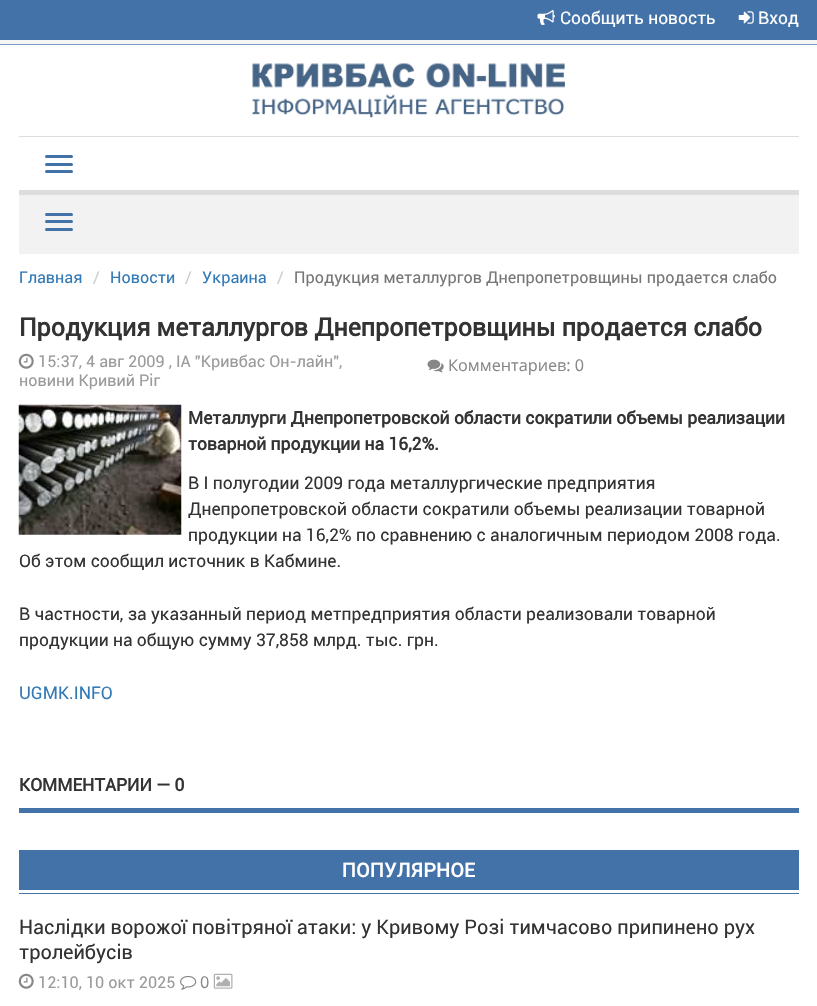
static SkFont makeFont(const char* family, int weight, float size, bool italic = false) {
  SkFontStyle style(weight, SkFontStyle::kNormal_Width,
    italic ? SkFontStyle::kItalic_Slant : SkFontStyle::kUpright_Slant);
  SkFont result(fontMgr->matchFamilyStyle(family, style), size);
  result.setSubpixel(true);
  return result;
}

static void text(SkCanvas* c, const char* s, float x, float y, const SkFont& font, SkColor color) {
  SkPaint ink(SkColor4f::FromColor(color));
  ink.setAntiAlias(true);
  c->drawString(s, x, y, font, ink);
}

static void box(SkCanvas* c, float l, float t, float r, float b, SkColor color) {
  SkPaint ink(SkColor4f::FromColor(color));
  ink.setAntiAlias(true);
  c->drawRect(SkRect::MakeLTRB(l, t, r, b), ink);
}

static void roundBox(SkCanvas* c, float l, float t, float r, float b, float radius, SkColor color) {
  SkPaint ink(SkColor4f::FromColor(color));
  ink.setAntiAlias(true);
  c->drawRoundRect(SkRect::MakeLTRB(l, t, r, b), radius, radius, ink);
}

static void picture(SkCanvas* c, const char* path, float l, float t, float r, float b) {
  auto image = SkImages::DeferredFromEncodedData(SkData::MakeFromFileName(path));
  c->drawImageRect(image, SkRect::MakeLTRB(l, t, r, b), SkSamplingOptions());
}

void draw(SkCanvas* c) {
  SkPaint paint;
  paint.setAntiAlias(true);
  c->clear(0xffffffff);
  box(c, 0, 0, 817, 40, 0xff4372a8);
  box(c, 0, 40, 817, 44, 0xfff5f5f5);
  picture(c, "img_01.png", 537, 10, 555, 25);
  SkFont face1 = makeFont("Roboto", 400, 17.5f);
  text(c, "Сообщить новость", 560, 24, face1, 0xffffffff);
  picture(c, "img_02.png", 738, 11, 754, 24);
  text(c, "Вход", 758, 24, face1, 0xffffffff);
  box(c, 0, 44, 817, 45, 0xff7799c0);
  picture(c, "img_03.png", 252, 63, 565, 118);
  box(c, 19, 136, 799, 137, 0xffdddddd);
  box(c, 19, 190, 799, 195, 0xffdddddd);
  roundBox(c, 45, 155, 73, 158, 1.5f, 0xff4372a8);
  roundBox(c, 45, 163, 73, 166, 1.5f, 0xff4372a8);
  roundBox(c, 45, 170, 73, 173, 1.5f, 0xff4372a8);
  box(c, 19, 195, 799, 254, 0xfff2f2f2);
  roundBox(c, 45, 213, 73, 216, 1.5f, 0xff4372a8);
  roundBox(c, 45, 220, 73, 223, 1.5f, 0xff4372a8);
  roundBox(c, 45, 228, 73, 231, 1.5f, 0xff4372a8);
  SkFont face2 = makeFont("Roboto", 400, 16.25f);
  text(c, "Главная", 19, 283, face2, 0xff337ab7);
  text(c, "/", 93, 283, face2, 0xffcccccc);
  text(c, "Новости", 110, 283, face2, 0xff337ab7);
  text(c, "/", 185, 283, face2, 0xffcccccc);
  text(c, "Украина", 202, 283, face2, 0xff337ab7);
  text(c, "/", 277, 283, face2, 0xffcccccc);
  text(c, "Продукция металлургов Днепропетровщины продается слабо", 294, 283, face2, 0xff777777);
  SkFont face3 = makeFont("Roboto", 700, 25);
  text(c, "Продукция металлургов Днепропетровщины продается слабо", 19, 336, face3, 0xff333333);
  picture(c, "img_04.png", 18, 353, 34, 369);
  text(c, "15:37, 4 авг 2009 , ІА \"Кривбас Он-лайн\",", 38, 367, face2, 0xff9b9b9b);
  text(c, "новини Кривий Ріг", 19, 386, face2, 0xff9b9b9b);
  picture(c, "img_05.png", 427, 359, 444, 373);
  SkFont face4 = makeFont("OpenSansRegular", 400, 16.25f);
  text(c, "Комментариев: 0", 448, 371, face4, 0xff878787);
  picture(c, "img_06.png", 18, 404, 182, 535);
  SkFont face5 = makeFont("Roboto", 700, 17.5f);
  text(c, "Металлурги Днепропетровской области сократили объемы реализации", 188, 424, face5, 0xff333333);
  text(c, "товарной продукции на 16,2%.", 188, 450, face5, 0xff333333);
  text(c, "В I полугодии 2009 года металлургические предприятия", 188, 489, face1, 0xff333333);
  text(c, "Днепропетровской области сократили объемы реализации товарной", 188, 515, face1, 0xff333333);
  text(c, "продукции на 16,2% по сравнению с аналогичным периодом 2008 года.", 188, 541, face1, 0xff333333);
  text(c, "Об этом сообщил источник в Кабмине.", 19, 567, face1, 0xff333333);
  text(c, "В частности, за указанный период метпредприятия области реализовали товарной", 19, 620, face1, 0xff333333);
  text(c, "продукции на общую сумму 37,858 млрд. тыс. грн.", 19, 646, face1, 0xff333333);
  text(c, "UGMK.INFO", 19, 699, face1, 0xff337ab7);
  box(c, 19, 808, 799, 813, 0xff4372a8);
  text(c, "КОММЕНТАРИИ — 0", 19, 791, face5, 0xff333333);
  box(c, 19, 850, 799, 890, 0xff4372a8);
  box(c, 19, 893, 799, 894, 0xff4372a8);
  SkFont face6 = makeFont("Roboto", 500, 20);
  text(c, "ПОПУЛЯРНОЕ", 342, 877, face6, 0xffffffff);
  SkFont face7 = makeFont("Roboto", 400, 20);
  text(c, "Наслідки ворожої повітряної атаки: у Кривому Розі тимчасово припинено рух", 19, 934, face7, 0xff333333);
  text(c, "тролейбусів", 19, 959, face7, 0xff333333);
  picture(c, "img_04.png", 18, 973, 34, 989);
  text(c, "12:10, 10 окт 2025", 38, 988, face2, 0xff9b9b9b);
  picture(c, "img_07.png", 180, 975, 197, 990);
  text(c, "0", 200, 988, face4, 0xff878787);
  picture(c, "img_08.png", 213, 973, 233, 989);
}
